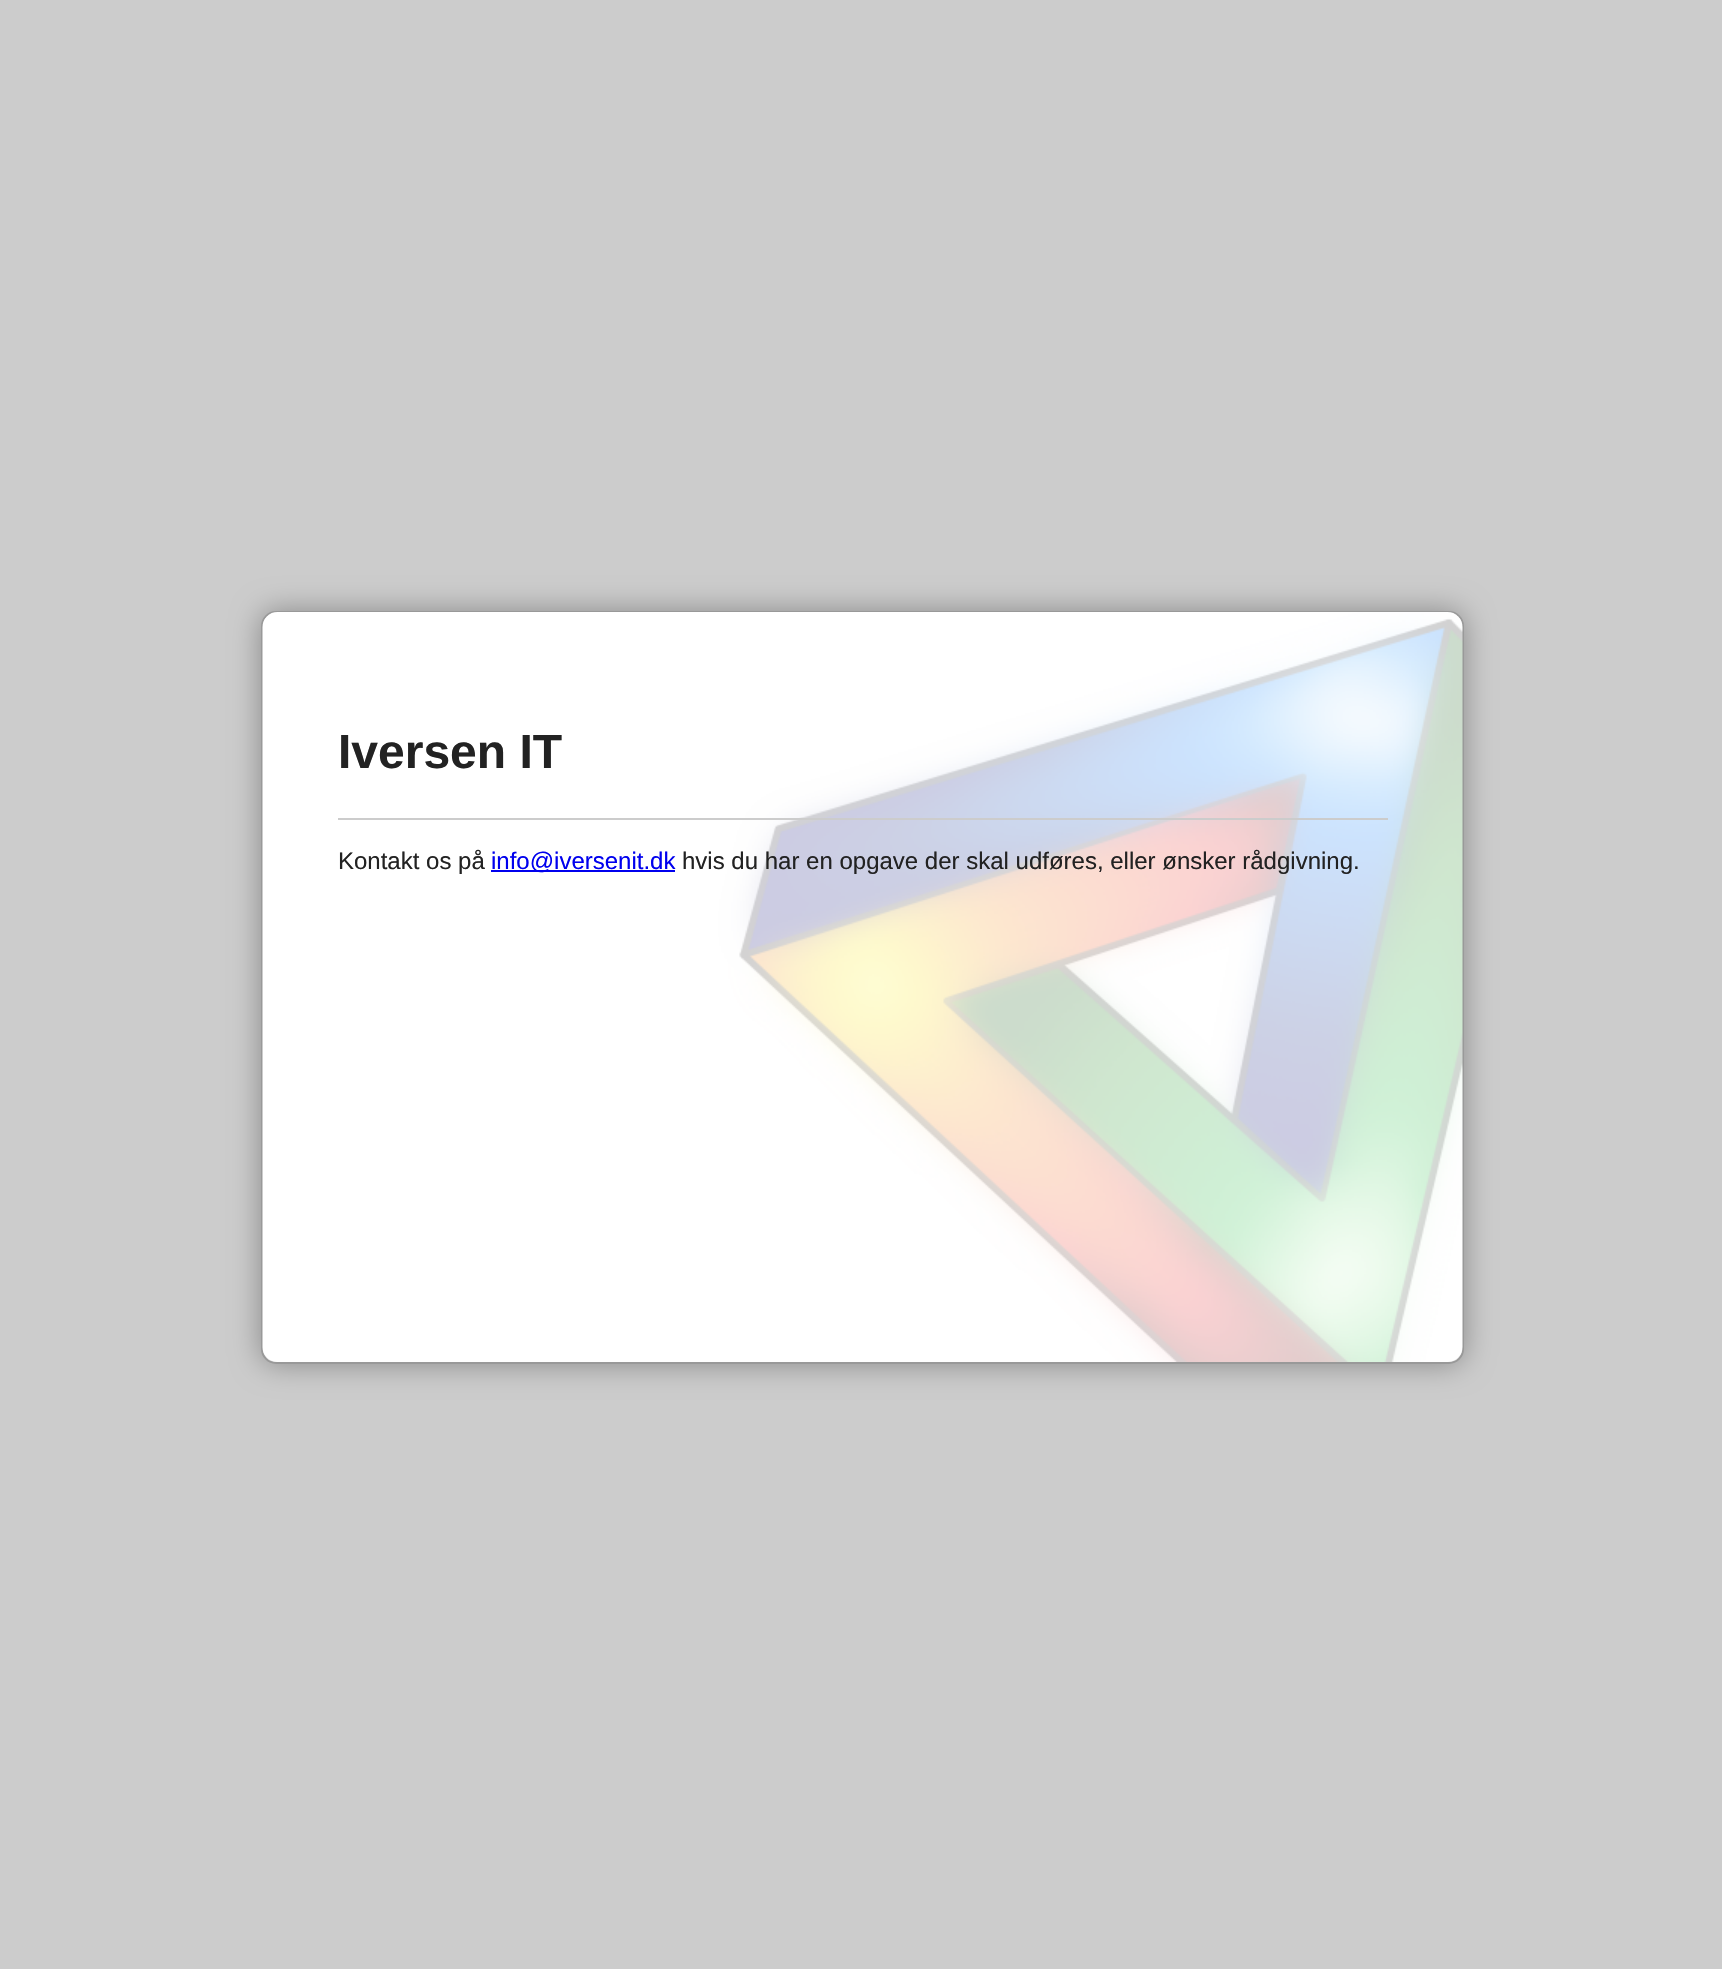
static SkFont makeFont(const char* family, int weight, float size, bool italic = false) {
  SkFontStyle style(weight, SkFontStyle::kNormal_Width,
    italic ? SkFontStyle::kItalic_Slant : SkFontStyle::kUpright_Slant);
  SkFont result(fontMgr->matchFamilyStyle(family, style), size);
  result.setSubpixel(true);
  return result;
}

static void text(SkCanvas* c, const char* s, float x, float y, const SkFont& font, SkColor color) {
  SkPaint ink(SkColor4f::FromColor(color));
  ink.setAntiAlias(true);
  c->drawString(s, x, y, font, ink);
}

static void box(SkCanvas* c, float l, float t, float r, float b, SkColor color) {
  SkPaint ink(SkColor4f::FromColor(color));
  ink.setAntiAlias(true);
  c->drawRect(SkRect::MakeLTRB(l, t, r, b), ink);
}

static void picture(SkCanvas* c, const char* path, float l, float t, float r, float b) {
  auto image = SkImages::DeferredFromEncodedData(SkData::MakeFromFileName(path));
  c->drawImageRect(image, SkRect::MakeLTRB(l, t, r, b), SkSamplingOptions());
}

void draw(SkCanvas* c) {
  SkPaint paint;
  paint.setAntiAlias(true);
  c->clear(0xffcccccc);
  paint.setColor(0xff888888);
  paint.setMaskFilter(SkMaskFilter::MakeBlur(kNormal_SkBlurStyle, 15));
  c->drawRoundRect(SkRect::MakeLTRB(261, 611, 1464, 1364), 15, 15, paint);
  paint.setMaskFilter(nullptr);
  paint.setColor(0xffe4e4e4);
  c->drawRoundRect(SkRect::MakeLTRB(262, 612, 1463, 1363), 14, 14, paint);
  paint.setStyle(SkPaint::kStroke_Style);
  paint.setStrokeWidth(2);
  paint.setColor(0xff999999);
  c->drawRoundRect(SkRect::MakeLTRB(262, 612, 1463, 1363), 14, 14, paint);
  picture(c, "img_01.png", 262, 612, 1463, 1362);
  SkFont face1 = makeFont("Liberation Sans", 700, 48);
  text(c, "Iversen IT", 338, 768, face1, 0xff222222);
  box(c, 338, 818, 1388, 820, 0xffcccccc);
  SkFont face2 = makeFont("Liberation Sans", 400, 24);
  text(c, "Kontakt os på", 338, 869, face2, 0xff222222);
  box(c, 491, 870, 675, 872, 0xff0000ee);
  text(c, "info@iversenit.dk", 491, 869, face2, 0xff0000ee);
  text(c, "hvis du har en opgave der skal udføres, eller ønsker rådgivning.", 682, 869, face2, 0xff222222);
}
